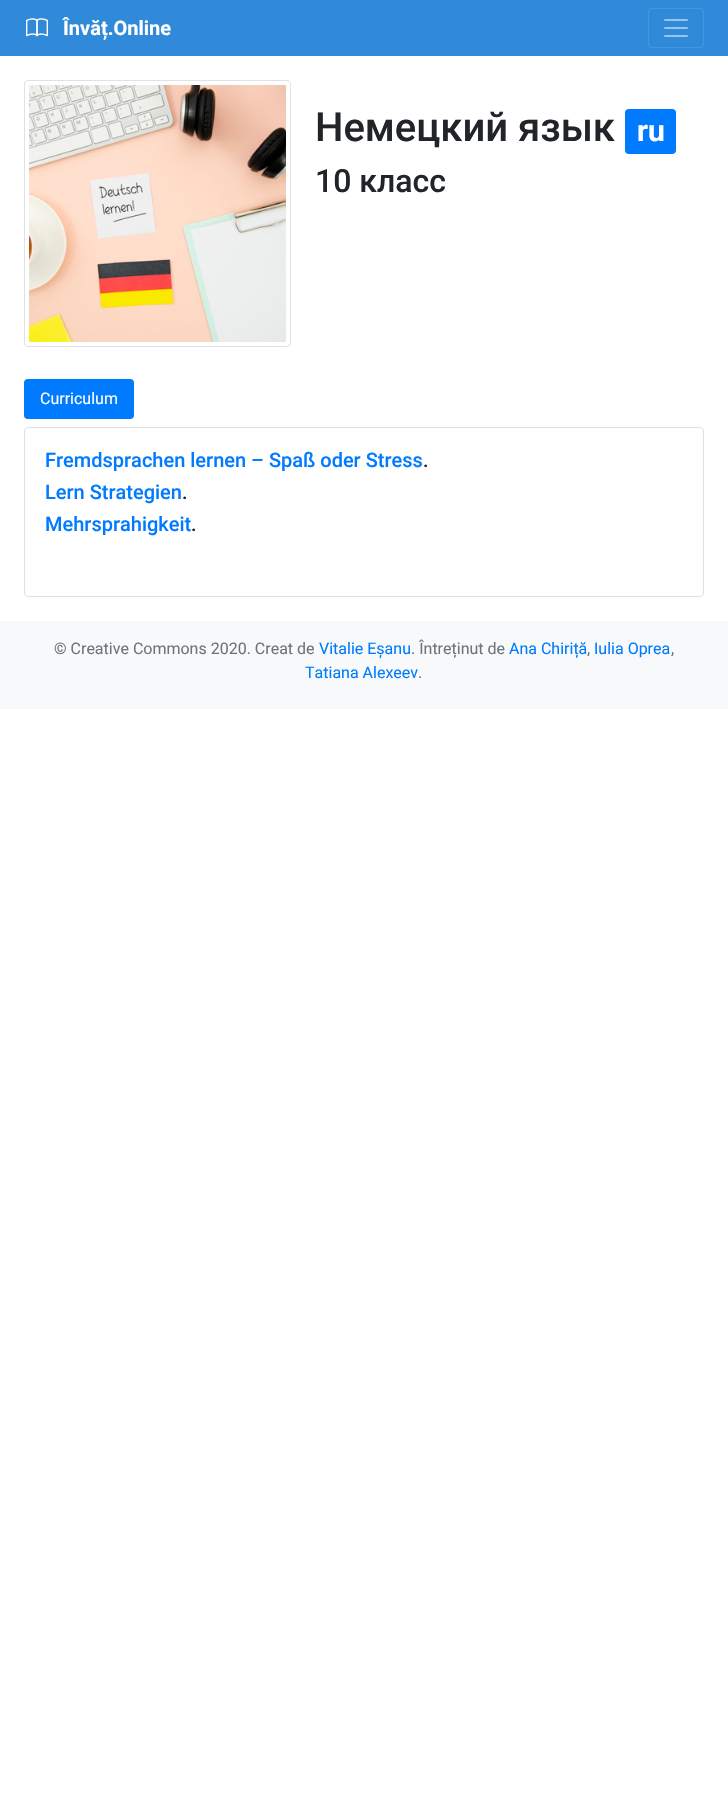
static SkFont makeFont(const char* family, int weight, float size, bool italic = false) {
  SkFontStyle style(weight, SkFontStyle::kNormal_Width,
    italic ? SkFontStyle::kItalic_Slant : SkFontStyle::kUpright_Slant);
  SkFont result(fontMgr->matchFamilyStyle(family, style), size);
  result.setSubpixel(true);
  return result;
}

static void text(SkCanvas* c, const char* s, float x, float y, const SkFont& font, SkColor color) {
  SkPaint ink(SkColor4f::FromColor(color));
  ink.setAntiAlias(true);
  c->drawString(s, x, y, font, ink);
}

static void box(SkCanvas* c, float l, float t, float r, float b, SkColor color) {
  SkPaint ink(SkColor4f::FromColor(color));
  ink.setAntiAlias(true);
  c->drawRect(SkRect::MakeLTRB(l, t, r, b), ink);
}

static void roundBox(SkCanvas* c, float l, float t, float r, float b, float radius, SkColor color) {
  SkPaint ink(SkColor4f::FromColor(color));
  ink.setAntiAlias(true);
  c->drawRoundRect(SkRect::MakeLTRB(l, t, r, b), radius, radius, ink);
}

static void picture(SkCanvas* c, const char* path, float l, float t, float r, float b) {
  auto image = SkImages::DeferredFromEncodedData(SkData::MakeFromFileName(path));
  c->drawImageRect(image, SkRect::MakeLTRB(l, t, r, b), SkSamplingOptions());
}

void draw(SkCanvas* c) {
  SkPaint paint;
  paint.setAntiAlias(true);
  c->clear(0xffffffff);
  box(c, 0, 0, 728, 56, 0xff318ad9);
  picture(c, "img_01.png", 26, 18, 48, 37);
  SkFont face1 = makeFont("Roboto", 700, 20);
  text(c, "Învăț.Online", 63, 35, face1, 0xffffffff);
  paint.setStyle(SkPaint::kStroke_Style);
  paint.setStrokeWidth(1);
  paint.setColor(0xff4696dd);
  c->drawRoundRect(SkRect::MakeLTRB(648.5f, 8.5f, 703.5f, 47.5f), 3.5f, 3.5f, paint);
  picture(c, "img_02.png", 664, 19, 688, 37);
  paint.setColor(0xffdee2e6);
  c->drawRoundRect(SkRect::MakeLTRB(24.5f, 80.5f, 290.5f, 346.5f), 3.5f, 3.5f, paint);
  picture(c, "img_03.png", 29, 85, 286, 342);
  SkFont face2 = makeFont("Roboto", 500, 40);
  text(c, "Немецкий язык", 315, 141, face2, 0xff212529);
  roundBox(c, 625, 109, 676, 154, 4, 0xff007bff);
  SkFont face3 = makeFont("Roboto", 700, 30);
  text(c, "ru", 637, 141, face3, 0xffffffff);
  SkFont face4 = makeFont("Roboto", 500, 32);
  text(c, "10 класс", 315, 192, face4, 0xff212529);
  roundBox(c, 24, 379, 134, 419, 4, 0xff007bff);
  SkFont face5 = makeFont("Roboto", 400, 16);
  text(c, "Curriculum", 40, 404, face5, 0xffffffff);
  paint.setColor(0xffdfdfdf);
  c->drawRoundRect(SkRect::MakeLTRB(24.5f, 427.5f, 703.5f, 596.5f), 3.5f, 3.5f, paint);
  SkFont face6 = makeFont("Roboto", 500, 20);
  text(c, "Fremdsprachen lernen – Spaß oder Stress", 45, 467, face6, 0xff007bff);
  text(c, ".", 423, 467, face6, 0xff212529);
  text(c, "Lern Strategien", 45, 499, face6, 0xff007bff);
  text(c, ".", 182, 499, face6, 0xff212529);
  text(c, "Mehrsprahigkeit", 45, 531, face6, 0xff007bff);
  text(c, ".", 191, 531, face6, 0xff212529);
  box(c, 0, 621, 728, 709, 0xfff8f9fa);
  text(c, "© Creative Commons 2020. Creat de", 54, 654, face5, 0xff6c757d);
  text(c, "Vitalie Eșanu", 319, 654, face5, 0xff007bff);
  text(c, ". Întreținut de", 411, 654, face5, 0xff6c757d);
  text(c, "Ana Chiriță", 509, 654, face5, 0xff007bff);
  text(c, ",", 587, 654, face5, 0xff6c757d);
  text(c, "Iulia Oprea", 594, 654, face5, 0xff007bff);
  text(c, ",", 671, 654, face5, 0xff6c757d);
  text(c, "Tatiana Alexeev", 305, 678, face5, 0xff007bff);
  text(c, ".", 418, 678, face5, 0xff6c757d);
}
